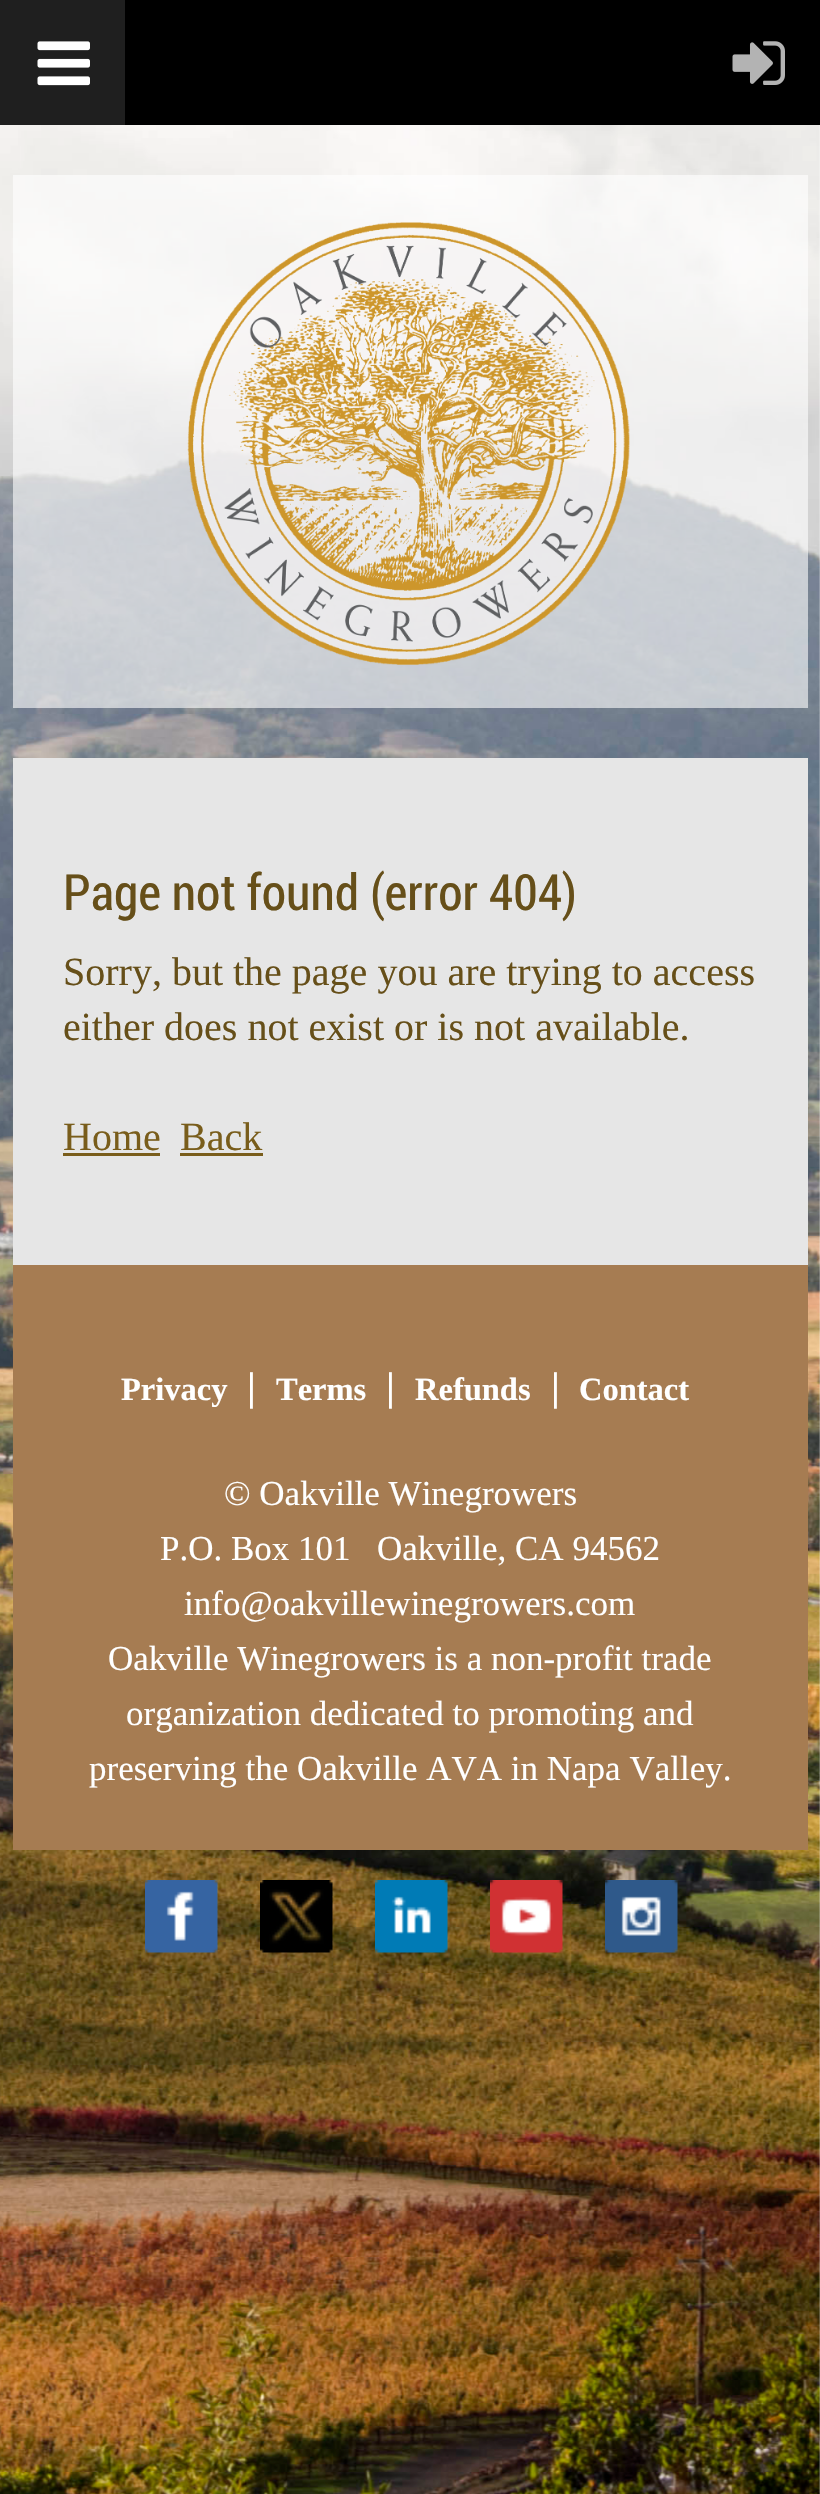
static SkFont makeFont(const char* family, int weight, float size, bool italic = false) {
  SkFontStyle style(weight, SkFontStyle::kNormal_Width,
    italic ? SkFontStyle::kItalic_Slant : SkFontStyle::kUpright_Slant);
  SkFont result(fontMgr->matchFamilyStyle(family, style), size);
  result.setSubpixel(true);
  return result;
}

static void text(SkCanvas* c, const char* s, float x, float y, const SkFont& font, SkColor color) {
  SkPaint ink(SkColor4f::FromColor(color));
  ink.setAntiAlias(true);
  c->drawString(s, x, y, font, ink);
}

static void box(SkCanvas* c, float l, float t, float r, float b, SkColor color) {
  SkPaint ink(SkColor4f::FromColor(color));
  ink.setAntiAlias(true);
  c->drawRect(SkRect::MakeLTRB(l, t, r, b), ink);
}

static void picture(SkCanvas* c, const char* path, float l, float t, float r, float b) {
  auto image = SkImages::DeferredFromEncodedData(SkData::MakeFromFileName(path));
  c->drawImageRect(image, SkRect::MakeLTRB(l, t, r, b), SkSamplingOptions());
}

void draw(SkCanvas* c) {
  SkPaint paint;
  paint.setAntiAlias(true);
  c->clear(0xffffffff);
  picture(c, "img_01.png", 0, 125, 820, 2494);
  box(c, 125, 0, 820, 125, 0xff000000);
  box(c, 0, 0, 125, 125, 0xff1f1f1f);
  picture(c, "img_02.png", 37, 41, 90, 86);
  picture(c, "img_03.png", 732, 41, 785, 85);
  box(c, 13, 175, 808, 708, 0x99ffffff);
  picture(c, "img_04.png", 187, 222, 630, 665);
  box(c, 13, 758, 808, 1265, 0xffe6e6e6);
  SkFont face1 = makeFont("Roboto Condensed", 400, 50);
  text(c, "Page not found (error 404)", 63, 910, face1, 0xff664f19);
  SkFont face2 = makeFont("Liberation Serif", 400, 40);
  text(c, "Sorry, but the page you are trying to access", 63, 985, face2, 0xff664f19);
  text(c, "either does not exist or is not available.", 63, 1040, face2, 0xff664f19);
  text(c, "Home", 63, 1150, face2, 0xff795d1b);
  box(c, 63, 1153, 160, 1156, 0xff795d1b);
  text(c, "Back", 180, 1150, face2, 0xff795d1b);
  box(c, 180, 1153, 263, 1156, 0xff795d1b);
  box(c, 13, 1265, 808, 1850, 0xffa67c52);
  SkFont face3 = makeFont("Liberation Serif", 700, 32.5f);
  text(c, "Privacy", 121, 1400, face3, 0xffffffff);
  SkFont face4 = makeFont("Liberation Serif", 700, 40);
  text(c, "|", 247, 1400, face4, 0xffffffff);
  text(c, "Terms", 276, 1400, face3, 0xffffffff);
  text(c, "|", 386, 1400, face4, 0xffffffff);
  text(c, "Refunds", 415, 1400, face3, 0xffffffff);
  text(c, "|", 551, 1400, face4, 0xffffffff);
  text(c, "Contact", 579, 1400, face3, 0xffffffff);
  SkFont face5 = makeFont("Liberation Serif", 400, 35);
  text(c, "© Oakville Winegrowers", 224, 1505, face5, 0xffffffff);
  text(c, "P.O. Box 101", 160, 1560, face5, 0xffffffff);
  text(c, "Oakville, CA 94562", 377, 1560, face5, 0xffffffff);
  text(c, "info@oakvillewinegrowers.com", 184, 1615, face5, 0xffffffff);
  text(c, "Oakville Winegrowers is a non-profit trade", 108, 1670, face5, 0xffffffff);
  text(c, "organization dedicated to promoting and", 126, 1725, face5, 0xffffffff);
  text(c, "preserving the Oakville AVA in Napa Valley.", 89, 1780, face5, 0xffffffff);
  picture(c, "img_05.png", 145, 1880, 218, 1953);
  picture(c, "img_06.png", 260, 1880, 333, 1953);
  picture(c, "img_07.png", 375, 1880, 448, 1953);
  picture(c, "img_08.png", 490, 1880, 563, 1953);
  picture(c, "img_09.png", 605, 1880, 678, 1953);
}
